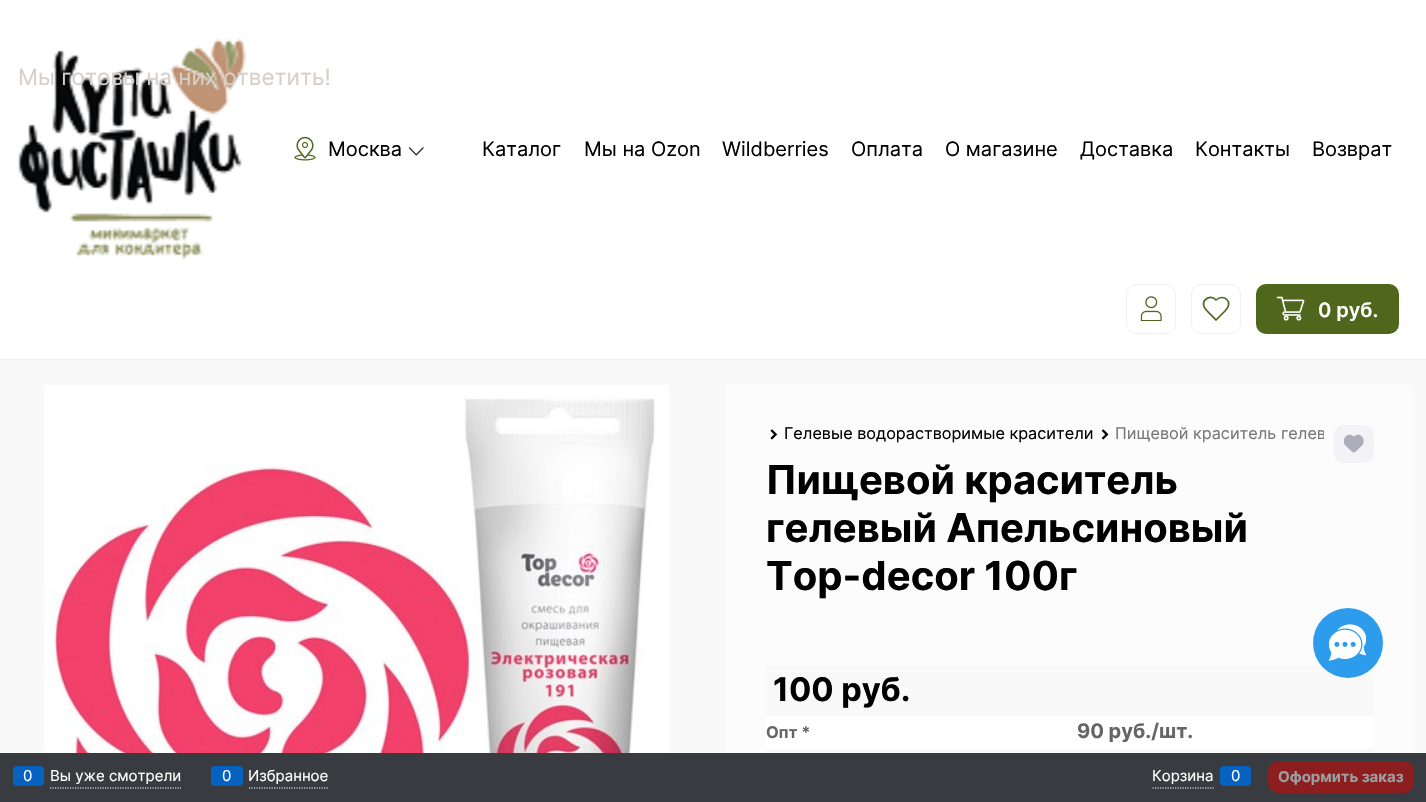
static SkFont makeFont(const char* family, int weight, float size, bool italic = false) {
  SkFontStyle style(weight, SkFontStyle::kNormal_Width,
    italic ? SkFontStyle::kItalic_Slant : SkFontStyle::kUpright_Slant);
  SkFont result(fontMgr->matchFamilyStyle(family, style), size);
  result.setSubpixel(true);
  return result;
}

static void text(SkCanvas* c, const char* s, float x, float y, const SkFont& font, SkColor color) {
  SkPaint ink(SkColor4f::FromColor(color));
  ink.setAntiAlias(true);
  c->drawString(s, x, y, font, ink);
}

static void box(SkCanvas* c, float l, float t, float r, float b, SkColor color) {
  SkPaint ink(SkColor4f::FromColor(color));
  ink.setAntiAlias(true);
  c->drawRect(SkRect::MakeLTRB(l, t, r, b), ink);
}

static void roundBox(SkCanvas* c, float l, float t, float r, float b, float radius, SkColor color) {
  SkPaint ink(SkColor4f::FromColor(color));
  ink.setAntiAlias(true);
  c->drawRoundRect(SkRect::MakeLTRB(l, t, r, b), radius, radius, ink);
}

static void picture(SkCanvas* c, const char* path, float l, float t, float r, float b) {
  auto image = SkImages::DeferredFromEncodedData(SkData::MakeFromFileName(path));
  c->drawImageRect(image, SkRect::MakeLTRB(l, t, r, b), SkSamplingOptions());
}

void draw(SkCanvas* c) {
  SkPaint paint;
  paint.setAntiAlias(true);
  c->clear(0xfff9f9f9);
  box(c, 0, 0, 1426, 359, 0xffffffff);
  picture(c, "img_01.png", 18, 38, 247, 260);
  SkFont face1 = makeFont("Inter", 400, 22.5f);
  text(c, "Мы готовы на них ответить!", 18, 85, face1, 0xffd6d0cb);
  box(c, 0, 359, 1426, 360, 0xfff0f0f0);
  picture(c, "img_02.png", 294, 136, 316, 161);
  SkFont face2 = makeFont("Inter", 400, 20);
  text(c, "Москва", 328, 156, face2, 0xff000000);
  picture(c, "img_03.png", 409, 147, 424, 156);
  text(c, "Каталог", 482, 156, face2, 0xff000000);
  text(c, "Мы на Ozon", 584, 156, face2, 0xff000000);
  text(c, "Wildberries", 722, 156, face2, 0xff000000);
  text(c, "Оплата", 851, 156, face2, 0xff000000);
  text(c, "О магазине", 945, 156, face2, 0xff000000);
  text(c, "Доставка", 1080, 156, face2, 0xff000000);
  text(c, "Контакты", 1195, 156, face2, 0xff000000);
  text(c, "Возврат", 1312, 156, face2, 0xff000000);
  paint.setStyle(SkPaint::kStroke_Style);
  paint.setStrokeWidth(1);
  paint.setColor(0xfff0f0f0);
  c->drawRoundRect(SkRect::MakeLTRB(1126.5f, 284.5f, 1175.5f, 333.5f), 9.5f, 9.5f, paint);
  picture(c, "img_04.png", 1140, 296, 1162, 321);
  c->drawRoundRect(SkRect::MakeLTRB(1191.5f, 284.5f, 1240.5f, 333.5f), 9.5f, 9.5f, paint);
  paint.setStrokeWidth(1.7f);
  paint.setStrokeCap(SkPaint::kRound_Cap);
  paint.setStrokeJoin(SkPaint::kRound_Join);
  paint.setColor(0xff4f671d);
  c->drawPath(SkPathBuilder().moveTo(1225, 311).cubicTo(1234.5f, 302, 1223.5f, 293, 1216, 300).cubicTo(1211, 294.5f, 1201.5f, 299, 1204, 306.5f).cubicTo(1205.5f, 310.5f, 1213.5f, 317, 1216, 320).close().detach(), paint);
  roundBox(c, 1256, 284, 1399, 334, 10, 0xff4f671d);
  picture(c, "img_05.png", 1276, 296, 1305, 321);
  SkFont face3 = makeFont("Inter", 600, 20);
  text(c, "0 руб.", 1318, 317, face3, 0xffffffff);
  picture(c, "img_06.png", 44, 385, 669, 753);
  paint.setStyle(SkPaint::kFill_Style);
  paint.setColor(0xfffcfcfc);
  c->drawPath(SkPathBuilder().moveTo(726, 385).lineTo(1404, 385).cubicTo(1409.5f, 385, 1414, 389.5f, 1414, 395).lineTo(1414, 802).cubicTo(1414, 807.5f, 1409.5f, 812, 1404, 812).lineTo(726, 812).close().detach(), paint);
  picture(c, "img_07.png", 770, 429, 777, 440);
  SkFont face4 = makeFont("Inter", 400, 16.25f);
  text(c, "Гелевые водорастворимые красители", 784, 439, face4, 0xff000000);
  picture(c, "img_08.png", 1101, 429, 1109, 440);
  c->save();
  c->clipRect(SkRect::MakeLTRB(766, 425, 1324, 453));
  text(c, "Пищевой краситель гелев", 1115, 439, face4, 0xff777777);
  c->restore();
  roundBox(c, 1334, 425, 1374, 463, 10, 0xfff3f3f7);
  picture(c, "img_09.png", 1344, 434, 1364, 453);
  SkFont face5 = makeFont("Inter", 700, 40);
  text(c, "Пищевой краситель", 766, 494, face5, 0xff000000);
  text(c, "гелевый Апельсиновый", 766, 542, face5, 0xff000000);
  text(c, "Top-decor 100г", 766, 590, face5, 0xff000000);
  paint.setColor(0xfff9f9f9);
  c->drawPath(SkPathBuilder().moveTo(767, 665).lineTo(1373, 665).cubicTo(1373.5f, 665, 1374, 665.5f, 1374, 666).lineTo(1374, 716).lineTo(766, 716).lineTo(766, 666).cubicTo(766, 665.5f, 766.5f, 665, 767, 665).close().detach(), paint);
  SkFont face6 = makeFont("Inter", 700, 32.5f);
  text(c, "100 руб.", 773, 701, face6, 0xff000000);
  box(c, 766, 716, 1374, 749, 0xffffffff);
  SkFont face7 = makeFont("Inter", 700, 16.25f);
  text(c, "Опт *", 766, 738, face7, 0xff666666);
  SkFont face8 = makeFont("Inter", 700, 20);
  text(c, "90 руб./шт.", 1077, 738, face8, 0xff666666);
  box(c, 766, 749, 1374, 753, 0xfff9f9f9);
  box(c, 0, 753, 1426, 802, 0xff383c40);
  paint.setStyle(SkPaint::kStroke_Style);
  paint.setStrokeWidth(1.2f);
  paint.setStrokeCap(SkPaint::kButt_Cap);
  paint.setStrokeJoin(SkPaint::kMiter_Join);
  paint.setColor(0xffffffff);
  paint.setPathEffect(SkDashPathEffect::Make({{1.25f, 1.25f}}, 0));
  c->drawPath(SkPathBuilder().moveTo(50, 788).lineTo(181, 788).detach(), paint);
  paint.setPathEffect(nullptr);
  roundBox(c, 13, 766, 44, 786, 4, 0xff0662c1);
  SkFont face9 = makeFont("Inter", 400, 15);
  text(c, "0", 23, 781, face9, 0xffffffff);
  text(c, "Вы уже смотрели", 50, 781, face9, 0xffffffff);
  paint.setPathEffect(SkDashPathEffect::Make({{1.25f, 1.25f}}, 0));
  c->drawPath(SkPathBuilder().moveTo(249, 788).lineTo(329, 788).detach(), paint);
  paint.setPathEffect(nullptr);
  roundBox(c, 211, 766, 243, 786, 4, 0xff0662c1);
  text(c, "0", 222, 781, face9, 0xffffffff);
  text(c, "Избранное", 248, 781, face9, 0xffffffff);
  paint.setPathEffect(SkDashPathEffect::Make({{1.25f, 1.25f}}, 0));
  c->drawPath(SkPathBuilder().moveTo(1152.5f, 788).lineTo(1214, 788).detach(), paint);
  paint.setPathEffect(nullptr);
  text(c, "Корзина", 1152, 781, face9, 0xffffffff);
  roundBox(c, 1220, 766, 1251, 786, 4, 0xff0662c1);
  text(c, "0", 1231, 781, face9, 0xffffffff);
  roundBox(c, 1268, 761, 1414, 793, 10, 0xff8d1e20);
  SkFont face10 = makeFont("Inter", 700, 15);
  text(c, "Оформить заказ", 1278, 782, face10, 0xff9c9ea0);
  paint.setStyle(SkPaint::kFill_Style);
  paint.setColor(0xff2d9ced);
  c->drawCircle(1348, 643, 35, paint);
  picture(c, "img_10.png", 1329, 624, 1366, 661);
}
